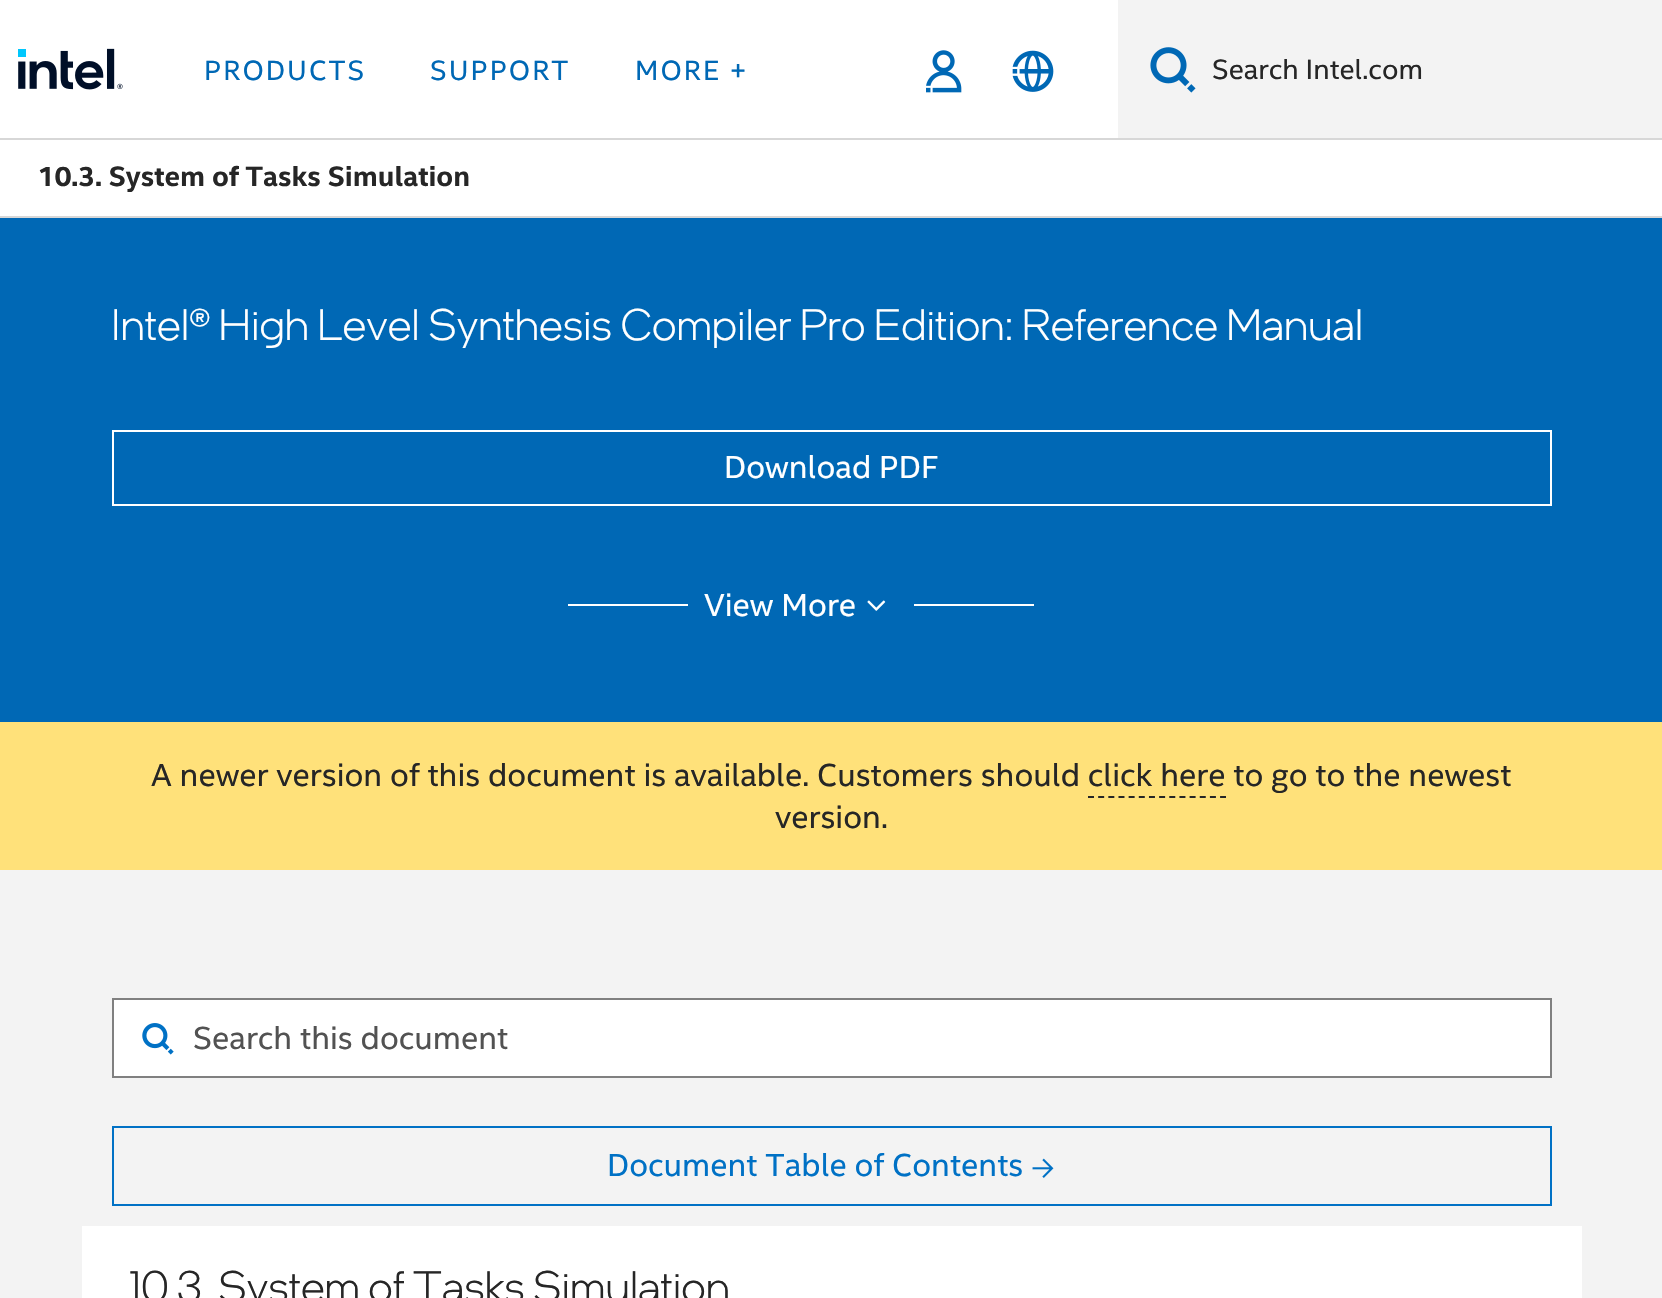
static SkFont makeFont(const char* family, int weight, float size, bool italic = false) {
  SkFontStyle style(weight, SkFontStyle::kNormal_Width,
    italic ? SkFontStyle::kItalic_Slant : SkFontStyle::kUpright_Slant);
  SkFont result(fontMgr->matchFamilyStyle(family, style), size);
  result.setSubpixel(true);
  return result;
}

static void text(SkCanvas* c, const char* s, float x, float y, const SkFont& font, SkColor color) {
  SkPaint ink(SkColor4f::FromColor(color));
  ink.setAntiAlias(true);
  c->drawString(s, x, y, font, ink);
}

static void spacedText(SkCanvas* c, const char* s, float x, float y, const SkFont& font, const SkPaint& ink, float letter, float word) {
  std::vector<SkGlyphID> glyphs(font.countText(s, strlen(s), SkTextEncoding::kUTF8));
  std::vector<float> xs(glyphs.size());
  font.textToGlyphs(s, strlen(s), SkTextEncoding::kUTF8, glyphs);
  font.getXPos(glyphs, xs, x);
  float extra = 0;
  for (size_t i = 0; i < glyphs.size(); i++) {
    xs[i] += extra;
    extra += letter + word * (glyphs[i] == font.unicharToGlyph(' '));
  }
  c->drawTextBlob(SkTextBlob::MakeFromPosHGlyphs(glyphs, xs, y, font), 0, 0, ink);
}

static void box(SkCanvas* c, float l, float t, float r, float b, SkColor color) {
  SkPaint ink(SkColor4f::FromColor(color));
  ink.setAntiAlias(true);
  c->drawRect(SkRect::MakeLTRB(l, t, r, b), ink);
}

static void picture(SkCanvas* c, const char* path, float l, float t, float r, float b) {
  auto image = SkImages::DeferredFromEncodedData(SkData::MakeFromFileName(path));
  c->drawImageRect(image, SkRect::MakeLTRB(l, t, r, b), SkSamplingOptions());
}

void draw(SkCanvas* c) {
  SkPaint paint;
  paint.setAntiAlias(true);
  c->clear(0xffffffff);
  box(c, 0, 138, 1662, 140, 0xffd7d7d7);
  picture(c, "img_01.png", 18, 48, 123, 90);
  SkFont face1 = makeFont("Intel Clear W", 400, 28);
  paint.setColor(0xff0068b5);
  spacedText(c, "PRODUCTS", 204, 80, face1, paint, 2, 0);
  spacedText(c, "SUPPORT", 430, 80, face1, paint, 2, 0);
  spacedText(c, "MORE +", 635, 80, face1, paint, 2, 0);
  picture(c, "img_02.png", 926, 50, 962, 93);
  picture(c, "img_03.png", 1012, 50, 1054, 92);
  box(c, 1118, 0, 1662, 138, 0xfff3f3f3);
  picture(c, "img_04.png", 1150, 47, 1196, 93);
  text(c, "Search Intel.com", 1212, 79, face1, 0xff262626);
  box(c, 0, 216, 1662, 218, 0xffd7d7d7);
  SkFont face2 = makeFont("Intel Clear W", 700, 28);
  text(c, "10.3. System of Tasks Simulation", 38, 186, face2, 0xff262626);
  box(c, 0, 218, 1662, 722, 0xff0068b5);
  SkFont face3 = makeFont("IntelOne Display", 300, 44);
  text(c, "Intel® High Level Synthesis Compiler Pro Edition: Reference Manual", 111, 340, face3, 0xffffffff);
  paint.setStyle(SkPaint::kStroke_Style);
  paint.setStrokeWidth(2);
  paint.setColor(0xffffffff);
  c->drawRect(SkRect::MakeLTRB(113, 431, 1551, 505), paint);
  SkFont face4 = makeFont("Intel Clear W", 400, 32);
  text(c, "Download PDF", 724, 478, face4, 0xffffffff);
  box(c, 568, 604, 688, 606, 0xffffffff);
  text(c, "View More", 704, 616, face4, 0xffffffff);
  picture(c, "img_05.png", 867, 600, 886, 611);
  box(c, 914, 604, 1034, 606, 0xffffffff);
  box(c, 0, 722, 1662, 870, 0xffffe17a);
  text(c, "A newer version of this document is available. Customers should click here to go to the newest", 151, 786, face4, 0xff262626);
  paint.setColor(0xff262626);
  paint.setPathEffect(SkDashPathEffect::Make({{6, 4.16f}}, 0));
  c->drawPath(SkPathBuilder().moveTo(1088, 797).lineTo(1226, 797).detach(), paint);
  paint.setPathEffect(nullptr);
  text(c, "version.", 775, 828, face4, 0xff262626);
  box(c, 0, 870, 1662, 1298, 0xfff3f3f3);
  paint.setStyle(SkPaint::kFill_Style);
  paint.setColor(0xffffffff);
  c->drawRect(SkRect::MakeLTRB(113, 999, 1551, 1077), paint);
  paint.setStyle(SkPaint::kStroke_Style);
  paint.setColor(0xff808080);
  c->drawRect(SkRect::MakeLTRB(113, 999, 1551, 1077), paint);
  picture(c, "img_06.png", 142, 1023, 174, 1055);
  text(c, "Search this document", 193, 1049, face4, 0xff525252);
  paint.setColor(0xff0071c5);
  c->drawRect(SkRect::MakeLTRB(113, 1127, 1551, 1205), paint);
  text(c, "Document Table of Contents", 607, 1176, face4, 0xff0071c5);
  picture(c, "img_07.png", 1032, 1158, 1054, 1178);
  box(c, 82, 1226, 1582, 1298, 0xffffffff);
  text(c, "10.3. System of Tasks Simulation", 129, 1302, face3, 0xff262626);
}
